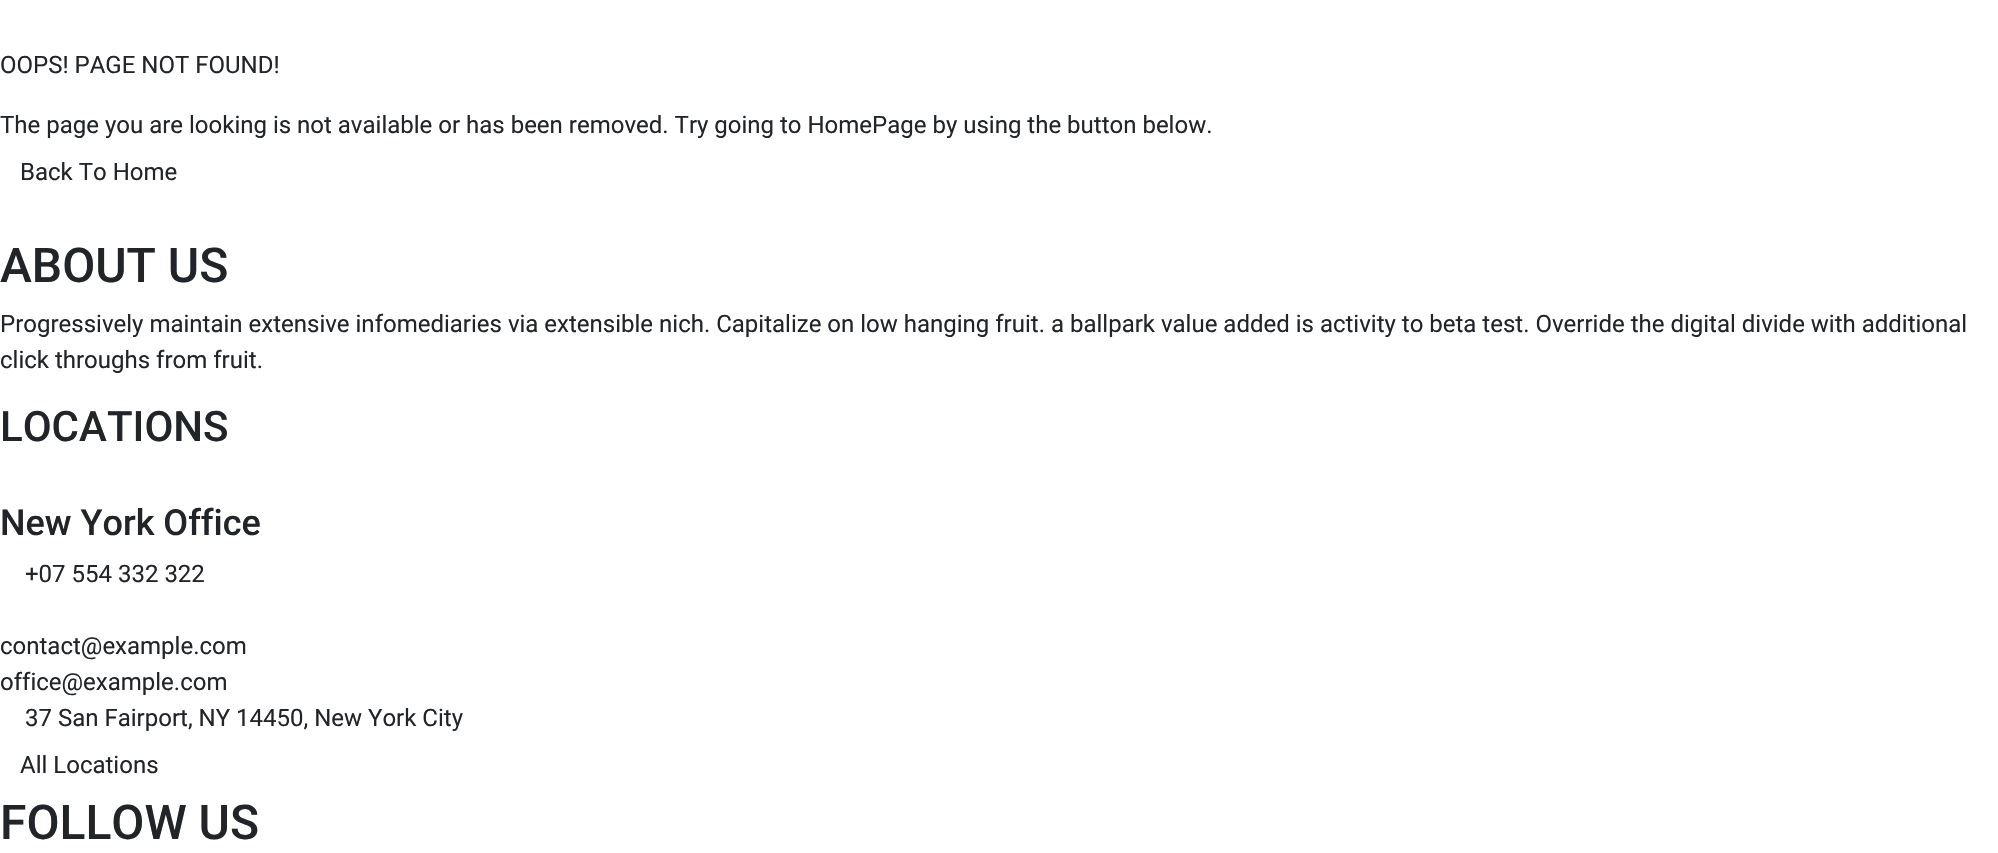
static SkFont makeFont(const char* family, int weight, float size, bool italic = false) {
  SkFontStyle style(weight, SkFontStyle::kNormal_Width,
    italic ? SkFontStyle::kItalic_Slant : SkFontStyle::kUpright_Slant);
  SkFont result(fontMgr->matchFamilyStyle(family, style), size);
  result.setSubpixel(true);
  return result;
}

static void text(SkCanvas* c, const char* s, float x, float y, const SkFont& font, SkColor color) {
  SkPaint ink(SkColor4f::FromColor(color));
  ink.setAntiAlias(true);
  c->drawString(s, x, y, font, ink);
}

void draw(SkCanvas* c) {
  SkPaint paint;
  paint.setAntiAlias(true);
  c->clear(0xffffffff);
  SkFont face1 = makeFont("Roboto", 400, 24);
  text(c, "OOPS! PAGE NOT FOUND!", 0, 73, face1, 0xff212529);
  text(c, "The page you are looking is not available or has been removed. Try going to HomePage by using the button below.", 0, 133, face1, 0xff212529);
  text(c, "Back To Home", 20, 180, face1, 0xff212529);
  SkFont face2 = makeFont("Roboto", 500, 48);
  text(c, "ABOUT US", 0, 282, face2, 0xff212529);
  text(c, "Progressively maintain extensive infomediaries via extensible nich. Capitalize on low hanging fruit. a ballpark value added is activity to beta test. Override the digital divide with additional", 0, 332, face1, 0xff212529);
  text(c, "click throughs from fruit.", 0, 368, face1, 0xff212529);
  SkFont face3 = makeFont("Roboto", 500, 42);
  text(c, "LOCATIONS", 0, 441, face3, 0xff212529);
  SkFont face4 = makeFont("Roboto", 500, 36);
  text(c, "New York Office", 0, 535, face4, 0xff212529);
  text(c, "+07 554 332 322", 25, 582, face1, 0xff212529);
  text(c, "contact@example.com", 0, 654, face1, 0xff212529);
  text(c, "office@example.com", 0, 690, face1, 0xff212529);
  text(c, "37 San Fairport, NY 14450, New York City", 25, 726, face1, 0xff212529);
  text(c, "All Locations", 20, 773, face1, 0xff212529);
  text(c, "FOLLOW US", 0, 839, face2, 0xff212529);
}
